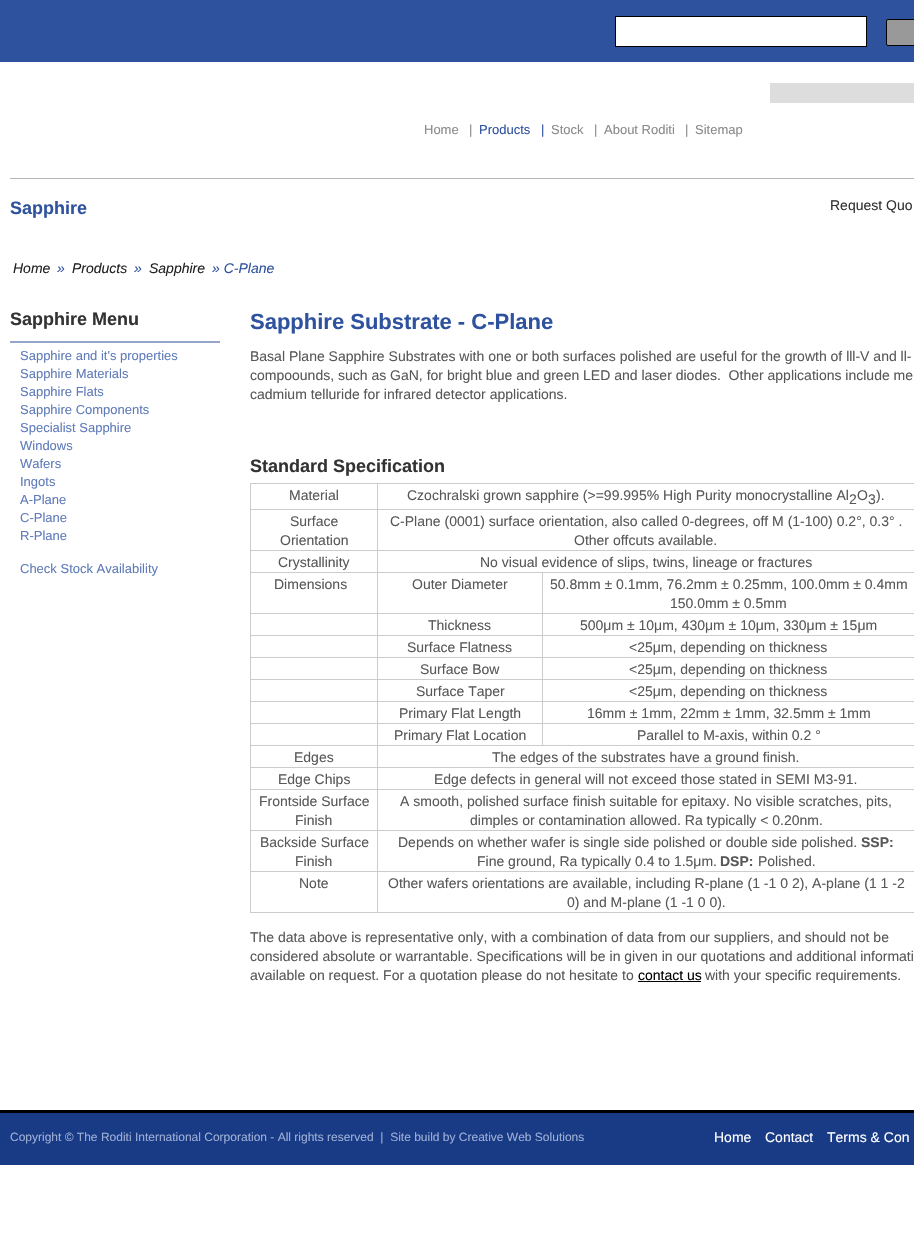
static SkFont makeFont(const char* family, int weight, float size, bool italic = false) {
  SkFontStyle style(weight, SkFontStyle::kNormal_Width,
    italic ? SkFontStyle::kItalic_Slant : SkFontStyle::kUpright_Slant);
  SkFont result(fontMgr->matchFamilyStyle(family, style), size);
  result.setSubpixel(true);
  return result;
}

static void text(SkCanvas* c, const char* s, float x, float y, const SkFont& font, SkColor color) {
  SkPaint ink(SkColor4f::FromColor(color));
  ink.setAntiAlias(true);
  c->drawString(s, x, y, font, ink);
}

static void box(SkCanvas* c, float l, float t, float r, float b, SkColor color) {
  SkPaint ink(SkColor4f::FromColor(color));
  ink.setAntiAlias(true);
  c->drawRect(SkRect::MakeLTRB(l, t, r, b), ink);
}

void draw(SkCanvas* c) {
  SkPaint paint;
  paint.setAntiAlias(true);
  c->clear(0xffffffff);
  box(c, 0, 0, 914, 62, 0xff2f529f);
  paint.setColor(0xffffffff);
  c->drawRect(SkRect::MakeLTRB(615.5f, 16.5f, 866.5f, 46.5f), paint);
  paint.setStyle(SkPaint::kStroke_Style);
  paint.setStrokeWidth(1);
  paint.setColor(0xff000000);
  c->drawRect(SkRect::MakeLTRB(615.5f, 16.5f, 866.5f, 46.5f), paint);
  paint.setStyle(SkPaint::kFill_Style);
  paint.setColor(0xff999999);
  c->drawRoundRect(SkRect::MakeLTRB(886.5f, 19.5f, 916.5f, 45.5f), 1.5f, 1.5f, paint);
  paint.setStyle(SkPaint::kStroke_Style);
  paint.setColor(0xff000000);
  c->drawRoundRect(SkRect::MakeLTRB(886.5f, 19.5f, 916.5f, 45.5f), 1.5f, 1.5f, paint);
  box(c, 10, 178, 914, 179, 0xffb5b5b5);
  box(c, 770, 83, 914, 103, 0xffdddddd);
  SkFont face1 = makeFont("Liberation Sans", 400, 13);
  text(c, "Home", 424, 134, face1, 0xff8a8a8a);
  text(c, "|", 469, 134, face1, 0xff8a8a8a);
  text(c, "Products", 479, 134, face1, 0xff2f529f);
  text(c, "|", 541, 134, face1, 0xff2f529f);
  text(c, "Stock", 551, 134, face1, 0xff8a8a8a);
  text(c, "|", 594, 134, face1, 0xff8a8a8a);
  text(c, "About Roditi", 604, 134, face1, 0xff8a8a8a);
  text(c, "|", 685, 134, face1, 0xff8a8a8a);
  text(c, "Sitemap", 695, 134, face1, 0xff8a8a8a);
  SkFont face2 = makeFont("Liberation Sans", 700, 18);
  text(c, "Sapphire", 10, 214, face2, 0xff2f529f);
  SkFont face3 = makeFont("Liberation Sans", 400, 14);
  text(c, "Request Quo", 830, 210, face3, 0xff333333);
  SkFont face4 = makeFont("Liberation Sans", 400, 14, true);
  text(c, "Home", 13, 273, face4, 0xff222222);
  text(c, "»", 57, 273, face4, 0xff2f529f);
  text(c, "Products", 72, 273, face4, 0xff222222);
  text(c, "»", 134, 273, face4, 0xff2f529f);
  text(c, "Sapphire", 149, 273, face4, 0xff222222);
  text(c, "» C-Plane", 212, 273, face4, 0xff2f529f);
  text(c, "Sapphire Menu", 10, 325, face2, 0xff333333);
  box(c, 10, 341, 220, 343, 0xff96a6ca);
  text(c, "Sapphire and it's properties", 20, 360, face1, 0xff5f7bba);
  text(c, "Sapphire Materials", 20, 378, face1, 0xff5f7bba);
  text(c, "Sapphire Flats", 20, 396, face1, 0xff5f7bba);
  text(c, "Sapphire Components", 20, 414, face1, 0xff5f7bba);
  text(c, "Specialist Sapphire", 20, 432, face1, 0xff5f7bba);
  text(c, "Windows", 20, 450, face1, 0xff5f7bba);
  text(c, "Wafers", 20, 468, face1, 0xff5f7bba);
  text(c, "Ingots", 20, 486, face1, 0xff5f7bba);
  text(c, "A-Plane", 20, 504, face1, 0xff5f7bba);
  text(c, "C-Plane", 20, 522, face1, 0xff5f7bba);
  text(c, "R-Plane", 20, 540, face1, 0xff5f7bba);
  text(c, "Check Stock Availability", 20, 573, face1, 0xff5f7bba);
  SkFont face5 = makeFont("Liberation Sans", 700, 22);
  text(c, "Sapphire Substrate - C-Plane", 250, 329, face5, 0xff2f529f);
  text(c, "Basal Plane Sapphire Substrates with one or both surfaces polished are useful for the growth of lll-V and ll-", 250, 361, face3, 0xff585858);
  text(c, "compoounds, such as GaN, for bright blue and green LED and laser diodes.  Other applications include me", 250, 380, face3, 0xff585858);
  text(c, "cadmium telluride for infrared detector applications.", 250, 399, face3, 0xff585858);
  text(c, "Standard Specification", 250, 472, face2, 0xff333333);
  box(c, 250, 483, 914, 484, 0xffcccccc);
  box(c, 250, 912, 914, 913, 0xffcccccc);
  box(c, 250, 483, 251, 913, 0xffcccccc);
  box(c, 542, 745, 914, 746, 0xffcccccc);
  box(c, 542, 723, 543, 746, 0xffcccccc);
  box(c, 542, 723, 914, 724, 0xffcccccc);
  box(c, 542, 701, 543, 724, 0xffcccccc);
  box(c, 542, 701, 914, 702, 0xffcccccc);
  box(c, 542, 679, 543, 702, 0xffcccccc);
  box(c, 542, 679, 914, 680, 0xffcccccc);
  box(c, 542, 657, 543, 680, 0xffcccccc);
  box(c, 542, 657, 914, 658, 0xffcccccc);
  box(c, 542, 635, 543, 658, 0xffcccccc);
  box(c, 542, 635, 914, 636, 0xffcccccc);
  box(c, 542, 613, 543, 636, 0xffcccccc);
  box(c, 542, 613, 914, 614, 0xffcccccc);
  box(c, 542, 572, 543, 614, 0xffcccccc);
  box(c, 377, 871, 378, 913, 0xffcccccc);
  box(c, 377, 871, 914, 872, 0xffcccccc);
  box(c, 377, 830, 378, 872, 0xffcccccc);
  box(c, 377, 830, 914, 831, 0xffcccccc);
  box(c, 377, 789, 378, 831, 0xffcccccc);
  box(c, 377, 789, 914, 790, 0xffcccccc);
  box(c, 377, 767, 378, 790, 0xffcccccc);
  box(c, 377, 767, 914, 768, 0xffcccccc);
  box(c, 377, 745, 378, 768, 0xffcccccc);
  box(c, 377, 745, 543, 746, 0xffcccccc);
  box(c, 377, 723, 378, 746, 0xffcccccc);
  box(c, 377, 723, 543, 724, 0xffcccccc);
  box(c, 377, 701, 378, 724, 0xffcccccc);
  box(c, 377, 701, 543, 702, 0xffcccccc);
  box(c, 377, 679, 378, 702, 0xffcccccc);
  box(c, 377, 679, 543, 680, 0xffcccccc);
  box(c, 377, 657, 378, 680, 0xffcccccc);
  box(c, 377, 657, 543, 658, 0xffcccccc);
  box(c, 377, 635, 378, 658, 0xffcccccc);
  box(c, 377, 635, 543, 636, 0xffcccccc);
  box(c, 377, 613, 378, 636, 0xffcccccc);
  box(c, 377, 613, 543, 614, 0xffcccccc);
  box(c, 377, 572, 378, 614, 0xffcccccc);
  box(c, 377, 572, 914, 573, 0xffcccccc);
  box(c, 377, 550, 378, 573, 0xffcccccc);
  box(c, 377, 550, 914, 551, 0xffcccccc);
  box(c, 377, 509, 378, 551, 0xffcccccc);
  box(c, 377, 509, 914, 510, 0xffcccccc);
  box(c, 377, 483, 378, 510, 0xffcccccc);
  box(c, 250, 509, 378, 510, 0xffcccccc);
  text(c, "Material", 289, 500, face3, 0xff585858);
  text(c, "Czochralski grown sapphire (>=99.995% High Purity monocrystalline Al", 407, 500, face3, 0xff585858);
  text(c, "2", 849, 504, face3, 0xff585858);
  text(c, "O", 857, 500, face3, 0xff585858);
  text(c, "3", 868, 504, face3, 0xff585858);
  text(c, ").", 876, 500, face3, 0xff585858);
  box(c, 250, 550, 378, 551, 0xffcccccc);
  text(c, "Surface", 290, 526, face3, 0xff585858);
  text(c, "Orientation", 280, 545, face3, 0xff585858);
  text(c, "C-Plane (0001) surface orientation, also called 0-degrees, off M (1-100) 0.2°, 0.3° .", 390, 526, face3, 0xff585858);
  text(c, "Other offcuts available.", 574, 545, face3, 0xff585858);
  box(c, 250, 572, 378, 573, 0xffcccccc);
  text(c, "Crystallinity", 278, 567, face3, 0xff585858);
  text(c, "No visual evidence of slips, twins, lineage or fractures", 480, 567, face3, 0xff585858);
  box(c, 250, 613, 378, 614, 0xffcccccc);
  text(c, "Dimensions", 274, 589, face3, 0xff585858);
  text(c, "Outer Diameter", 412, 589, face3, 0xff585858);
  text(c, "50.8mm ± 0.1mm, 76.2mm ± 0.25mm, 100.0mm ± 0.4mm", 550, 589, face3, 0xff585858);
  text(c, "150.0mm ± 0.5mm", 670, 608, face3, 0xff585858);
  box(c, 250, 635, 378, 636, 0xffcccccc);
  text(c, "Thickness", 428, 630, face3, 0xff585858);
  text(c, "500μm ± 10μm, 430μm ± 10μm, 330μm ± 15μm", 580, 630, face3, 0xff585858);
  box(c, 250, 657, 378, 658, 0xffcccccc);
  text(c, "Surface Flatness", 407, 652, face3, 0xff585858);
  text(c, "<25μm, depending on thickness", 629, 652, face3, 0xff585858);
  box(c, 250, 679, 378, 680, 0xffcccccc);
  text(c, "Surface Bow", 420, 674, face3, 0xff585858);
  text(c, "<25μm, depending on thickness", 629, 674, face3, 0xff585858);
  box(c, 250, 701, 378, 702, 0xffcccccc);
  text(c, "Surface Taper", 416, 696, face3, 0xff585858);
  text(c, "<25μm, depending on thickness", 629, 696, face3, 0xff585858);
  box(c, 250, 723, 378, 724, 0xffcccccc);
  text(c, "Primary Flat Length", 399, 718, face3, 0xff585858);
  text(c, "16mm ± 1mm, 22mm ± 1mm, 32.5mm ± 1mm", 587, 718, face3, 0xff585858);
  box(c, 250, 745, 378, 746, 0xffcccccc);
  text(c, "Primary Flat Location", 394, 740, face3, 0xff585858);
  text(c, "Parallel to M-axis, within 0.2 °", 637, 740, face3, 0xff585858);
  box(c, 250, 767, 378, 768, 0xffcccccc);
  text(c, "Edges", 294, 762, face3, 0xff585858);
  text(c, "The edges of the substrates have a ground finish.", 492, 762, face3, 0xff585858);
  box(c, 250, 789, 378, 790, 0xffcccccc);
  text(c, "Edge Chips", 278, 784, face3, 0xff585858);
  text(c, "Edge defects in general will not exceed those stated in SEMI M3-91.", 434, 784, face3, 0xff585858);
  box(c, 250, 830, 378, 831, 0xffcccccc);
  text(c, "Frontside Surface", 259, 806, face3, 0xff585858);
  text(c, "Finish", 295, 825, face3, 0xff585858);
  text(c, "A smooth, polished surface finish suitable for epitaxy. No visible scratches, pits,", 400, 806, face3, 0xff585858);
  text(c, "dimples or contamination allowed. Ra typically < 0.20nm.", 470, 825, face3, 0xff585858);
  box(c, 250, 871, 378, 872, 0xffcccccc);
  text(c, "Backside Surface", 260, 847, face3, 0xff585858);
  text(c, "Finish", 295, 866, face3, 0xff585858);
  text(c, "Depends on whether wafer is single side polished or double side polished.", 398, 847, face3, 0xff585858);
  SkFont face6 = makeFont("Liberation Sans", 700, 14);
  text(c, "SSP:", 861, 847, face6, 0xff585858);
  text(c, "Fine ground, Ra typically 0.4 to 1.5μm.", 477, 866, face3, 0xff585858);
  text(c, "DSP:", 720, 866, face6, 0xff585858);
  text(c, "Polished.", 758, 866, face3, 0xff585858);
  text(c, "Note", 299, 888, face3, 0xff585858);
  text(c, "Other wafers orientations are available, including R-plane (1 -1 0 2), A-plane (1 1 -2", 388, 888, face3, 0xff585858);
  text(c, "0) and M-plane (1 -1 0 0).", 567, 907, face3, 0xff585858);
  text(c, "The data above is representative only, with a combination of data from our suppliers, and should not be", 250, 942, face3, 0xff585858);
  text(c, "considered absolute or warrantable. Specifications will be in given in our quotations and additional informati", 250, 961, face3, 0xff585858);
  text(c, "available on request. For a quotation please do not hesitate to", 250, 980, face3, 0xff585858);
  text(c, "contact us", 638, 980, face3, 0xff000000);
  box(c, 638, 981, 701, 982, 0xff000000);
  text(c, "with your specific requirements.", 705, 980, face3, 0xff585858);
  box(c, 0, 1113, 914, 1165, 0xff193b86);
  box(c, 0, 1110, 914, 1113, 0xff000000);
  SkFont face7 = makeFont("Liberation Sans", 400, 12);
  text(c, "Copyright © The Roditi International Corporation - All rights reserved  |  Site build by Creative Web Solutions", 10, 1141, face7, 0xff9dafd5);
  text(c, "Home", 714, 1142, face3, 0xffffffff);
  text(c, "Contact", 765, 1142, face3, 0xffffffff);
  text(c, "Terms & Con", 827, 1142, face3, 0xffffffff);
}
